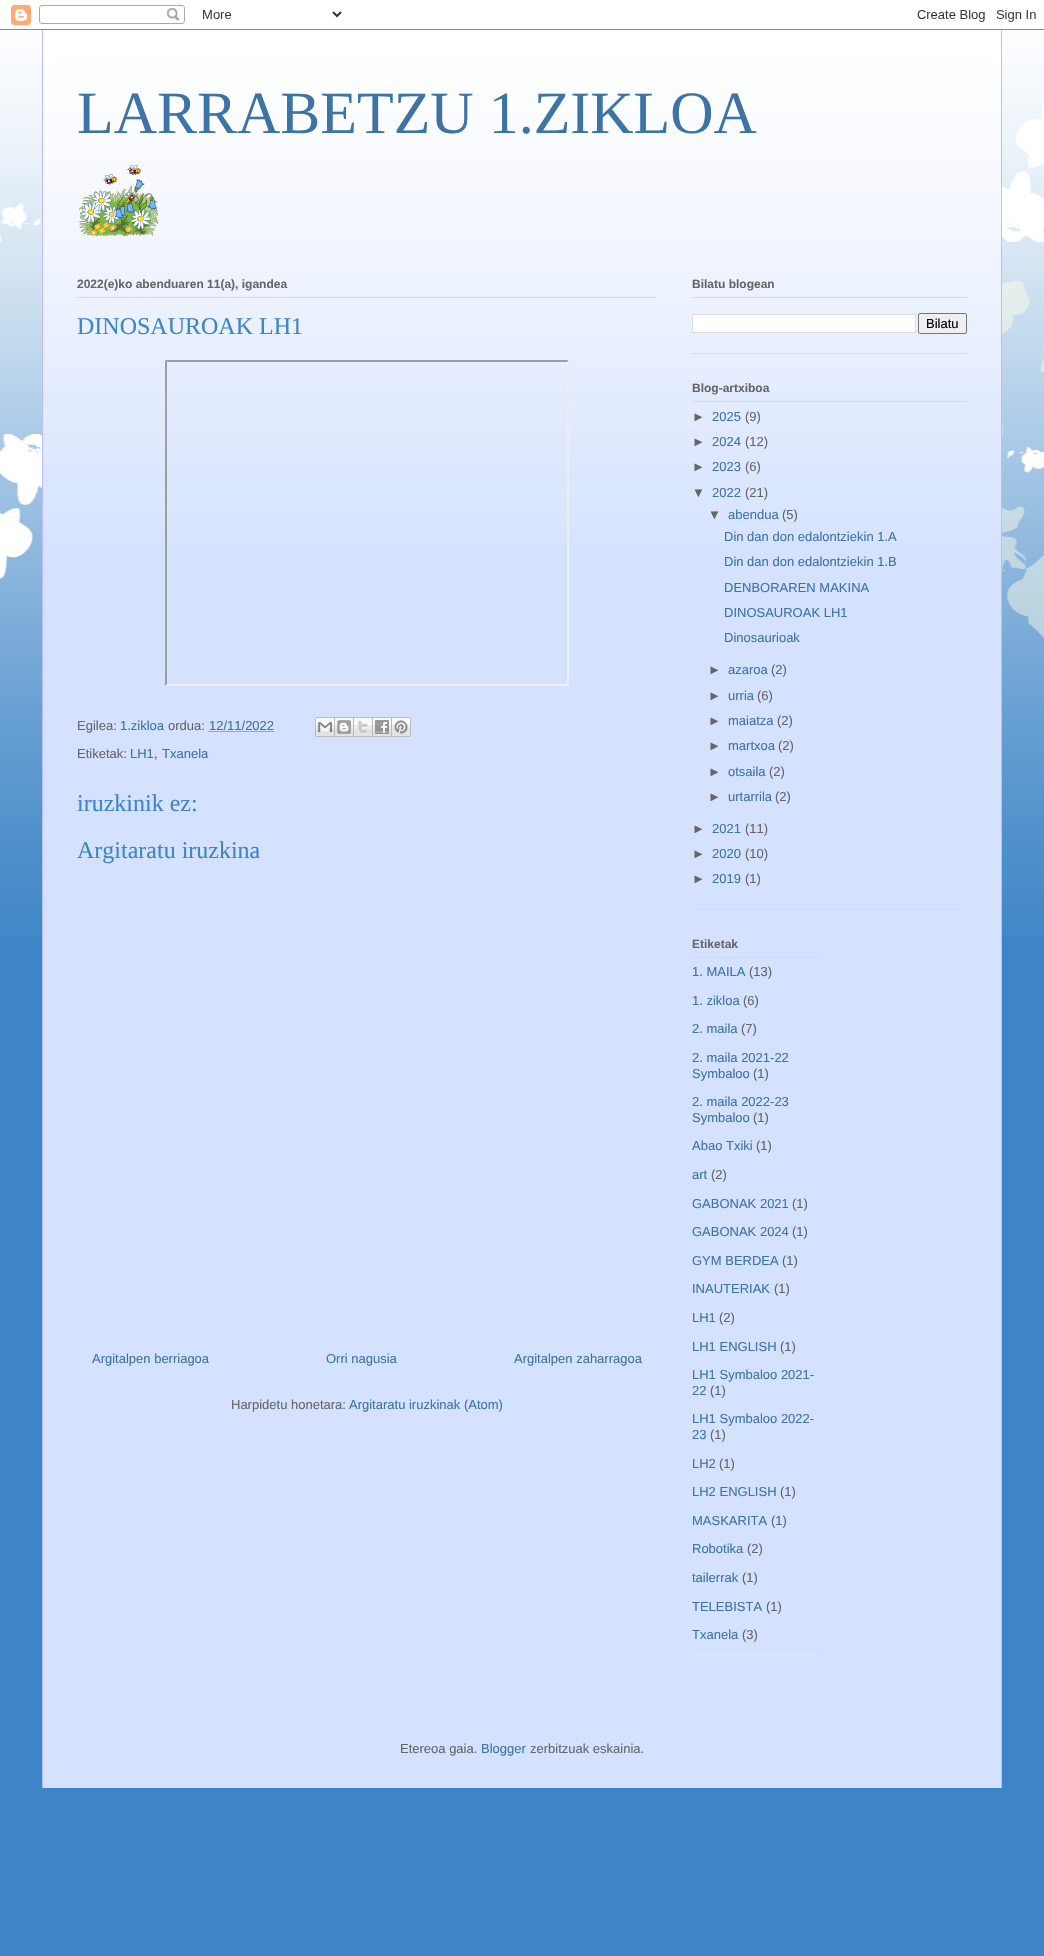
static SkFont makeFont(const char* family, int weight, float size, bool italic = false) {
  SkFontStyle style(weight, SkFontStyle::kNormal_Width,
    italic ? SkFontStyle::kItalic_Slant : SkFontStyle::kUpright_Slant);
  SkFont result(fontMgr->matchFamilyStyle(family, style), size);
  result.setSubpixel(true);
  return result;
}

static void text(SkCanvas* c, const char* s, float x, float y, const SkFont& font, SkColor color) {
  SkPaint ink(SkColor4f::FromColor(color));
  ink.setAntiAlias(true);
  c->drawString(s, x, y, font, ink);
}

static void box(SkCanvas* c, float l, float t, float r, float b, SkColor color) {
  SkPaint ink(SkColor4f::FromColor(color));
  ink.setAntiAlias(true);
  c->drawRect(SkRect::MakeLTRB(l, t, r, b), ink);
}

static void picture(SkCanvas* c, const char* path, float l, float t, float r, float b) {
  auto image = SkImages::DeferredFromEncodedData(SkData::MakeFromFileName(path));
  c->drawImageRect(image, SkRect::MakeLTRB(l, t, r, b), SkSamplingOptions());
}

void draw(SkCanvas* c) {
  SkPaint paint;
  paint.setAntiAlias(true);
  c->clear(0xff3d85c6);
  picture(c, "img_01.png", 0, 0, 1044, 937);
  picture(c, "img_02.png", 0, 5, 1044, 30);
  box(c, 43, 37, 1001, 1788, 0xffd4e1ff);
  picture(c, "img_03.png", 43, 30, 1001, 542);
  box(c, 1001, 30, 1002, 1788, 0xffbbbbff);
  box(c, 42, 30, 43, 1788, 0xffbbbbff);
  SkFont face1 = makeFont("Liberation Serif", 400, 60);
  text(c, "LARRABETZU 1.ZIKLOA", 77, 133, face1, 0xff3d74a5);
  picture(c, "img_04.png", 79, 165, 158, 236);
  box(c, 77, 297, 657, 298, 0xffdbdbdb);
  SkFont face2 = makeFont("Liberation Sans", 700, 12);
  text(c, "2022(e)ko abenduaren 11(a), igandea", 77, 288, face2, 0xff666666);
  SkFont face3 = makeFont("Liberation Serif", 400, 24);
  text(c, "DINOSAUROAK LH1", 77, 334, face3, 0xff3d85c6);
  paint.setColor(0xff9f9f9f);
  c->drawPath(SkPathBuilder().moveTo(165, 360).lineTo(569, 360).lineTo(567, 362).lineTo(167, 362).close().detach(), paint);
  paint.setColor(0xffeeeeee);
  c->drawPath(SkPathBuilder().moveTo(569, 360).lineTo(569, 686).lineTo(567, 684).lineTo(567, 362).close().detach(), paint);
  c->drawPath(SkPathBuilder().moveTo(569, 686).lineTo(165, 686).lineTo(167, 684).lineTo(567, 684).close().detach(), paint);
  paint.setColor(0xff9f9f9f);
  c->drawPath(SkPathBuilder().moveTo(165, 686).lineTo(165, 360).lineTo(167, 362).lineTo(167, 684).close().detach(), paint);
  SkFont face4 = makeFont("Liberation Sans", 400, 13);
  text(c, "Egilea:", 77, 730, face4, 0xff666666);
  text(c, "1.zikloa", 120, 730, face4, 0xff3d74a5);
  text(c, "ordua:", 168, 730, face4, 0xff666666);
  text(c, "12/11/2022", 209, 730, face4, 0xff3d74a5);
  paint.setStyle(SkPaint::kStroke_Style);
  paint.setStrokeWidth(1);
  paint.setColor(0xff3d74a5);
  paint.setPathEffect(SkDashPathEffect::Make({{1, 1}}, 0));
  c->drawPath(SkPathBuilder().moveTo(208.5f, 731.5f).lineTo(273.5f, 731.5f).detach(), paint);
  paint.setPathEffect(nullptr);
  picture(c, "img_05.png", 315, 717, 335, 737);
  picture(c, "img_06.png", 335, 717, 354, 737);
  picture(c, "img_07.png", 354, 717, 373, 737);
  picture(c, "img_08.png", 373, 717, 392, 737);
  picture(c, "img_09.png", 392, 717, 411, 737);
  text(c, "Etiketak:", 77, 758, face4, 0xff666666);
  text(c, "LH1", 130, 758, face4, 0xff3d74a5);
  text(c, ",", 154, 758, face4, 0xff666666);
  text(c, "Txanela", 162, 758, face4, 0xff3d74a5);
  text(c, "iruzkinik ez:", 77, 811, face3, 0xff3d85c6);
  text(c, "Argitaratu iruzkina", 77, 858, face3, 0xff3d85c6);
  text(c, "Argitalpen berriagoa", 92, 1363, face4, 0xff3d74a5);
  text(c, "Orri nagusia", 326, 1363, face4, 0xff3d74a5);
  text(c, "Argitalpen zaharragoa", 514, 1363, face4, 0xff3d74a5);
  text(c, "Harpidetu honetara:", 231, 1409, face4, 0xff666666);
  text(c, "Argitaratu iruzkinak (Atom)", 349, 1409, face4, 0xff3d74a5);
  box(c, 692, 353, 967, 354, 0xffdbdbdb);
  box(c, 692, 297, 967, 298, 0xffdbdbdb);
  text(c, "Bilatu blogean", 692, 288, face2, 0xff666666);
  paint.setStyle(SkPaint::kFill_Style);
  paint.setColor(0xffffffff);
  c->drawRect(SkRect::MakeLTRB(692.5f, 314.5f, 915.5f, 332.5f), paint);
  paint.setStyle(SkPaint::kStroke_Style);
  paint.setColor(0xffdddddd);
  c->drawRect(SkRect::MakeLTRB(692.5f, 314.5f, 915.5f, 332.5f), paint);
  paint.setStyle(SkPaint::kFill_Style);
  paint.setColor(0xffefefef);
  c->drawRoundRect(SkRect::MakeLTRB(918.5f, 313.5f, 966.5f, 333.5f), 1.5f, 1.5f, paint);
  paint.setStyle(SkPaint::kStroke_Style);
  paint.setColor(0xff767676);
  c->drawRoundRect(SkRect::MakeLTRB(918.5f, 313.5f, 966.5f, 333.5f), 1.5f, 1.5f, paint);
  text(c, "Bilatu", 926, 328, face4, 0xff000000);
  box(c, 692, 909, 967, 910, 0xffdbdbdb);
  box(c, 692, 401, 967, 402, 0xffdbdbdb);
  text(c, "Blog-artxiboa", 692, 392, face2, 0xff666666);
  text(c, "►", 692, 421, face4, 0xff666666);
  text(c, "2025", 712, 421, face4, 0xff3d74a5);
  text(c, "(9)", 745, 421, face4, 0xff666666);
  text(c, "►", 692, 446, face4, 0xff666666);
  text(c, "2024", 712, 446, face4, 0xff3d74a5);
  text(c, "(12)", 745, 446, face4, 0xff666666);
  text(c, "►", 692, 471, face4, 0xff666666);
  text(c, "2023", 712, 471, face4, 0xff3d74a5);
  text(c, "(6)", 745, 471, face4, 0xff666666);
  text(c, "▼", 692, 497, face4, 0xff666666);
  text(c, "2022", 712, 497, face4, 0xff3d74a5);
  text(c, "(21)", 745, 497, face4, 0xff666666);
  text(c, "▼", 708, 519, face4, 0xff666666);
  text(c, "abendua", 728, 519, face4, 0xff3d74a5);
  text(c, "(5)", 782, 519, face4, 0xff666666);
  text(c, "Din dan don edalontziekin 1.A", 724, 541, face4, 0xff3d74a5);
  text(c, "Din dan don edalontziekin 1.B", 724, 566, face4, 0xff3d74a5);
  text(c, "DENBORAREN MAKINA", 724, 592, face4, 0xff3d74a5);
  text(c, "DINOSAUROAK LH1", 724, 617, face4, 0xff3d74a5);
  text(c, "Dinosaurioak", 724, 642, face4, 0xff3d74a5);
  text(c, "►", 708, 674, face4, 0xff666666);
  text(c, "azaroa", 728, 674, face4, 0xff3d74a5);
  text(c, "(2)", 771, 674, face4, 0xff666666);
  text(c, "►", 708, 700, face4, 0xff666666);
  text(c, "urria", 728, 700, face4, 0xff3d74a5);
  text(c, "(6)", 757, 700, face4, 0xff666666);
  text(c, "►", 708, 725, face4, 0xff666666);
  text(c, "maiatza", 728, 725, face4, 0xff3d74a5);
  text(c, "(2)", 777, 725, face4, 0xff666666);
  text(c, "►", 708, 750, face4, 0xff666666);
  text(c, "martxoa", 728, 750, face4, 0xff3d74a5);
  text(c, "(2)", 778, 750, face4, 0xff666666);
  text(c, "►", 708, 776, face4, 0xff666666);
  text(c, "otsaila", 728, 776, face4, 0xff3d74a5);
  text(c, "(2)", 769, 776, face4, 0xff666666);
  text(c, "►", 708, 801, face4, 0xff666666);
  text(c, "urtarrila", 728, 801, face4, 0xff3d74a5);
  text(c, "(2)", 775, 801, face4, 0xff666666);
  text(c, "►", 692, 833, face4, 0xff666666);
  text(c, "2021", 712, 833, face4, 0xff3d74a5);
  text(c, "(11)", 745, 833, face4, 0xff666666);
  text(c, "►", 692, 858, face4, 0xff666666);
  text(c, "2020", 712, 858, face4, 0xff3d74a5);
  text(c, "(10)", 745, 858, face4, 0xff666666);
  text(c, "►", 692, 883, face4, 0xff666666);
  text(c, "2019", 712, 883, face4, 0xff3d74a5);
  text(c, "(1)", 745, 883, face4, 0xff666666);
  box(c, 692, 1649, 822, 1650, 0xffdbdbdb);
  box(c, 692, 957, 822, 958, 0xffdbdbdb);
  text(c, "Etiketak", 692, 948, face2, 0xff666666);
  text(c, "1. MAILA", 692, 976, face4, 0xff3d74a5);
  text(c, "(13)", 749, 976, face4, 0xff666666);
  text(c, "1. zikloa", 692, 1005, face4, 0xff3d74a5);
  text(c, "(6)", 743, 1005, face4, 0xff666666);
  text(c, "2. maila", 692, 1033, face4, 0xff3d74a5);
  text(c, "(7)", 741, 1033, face4, 0xff666666);
  text(c, "2. maila 2021-22", 692, 1062, face4, 0xff3d74a5);
  text(c, "Symbaloo", 692, 1078, face4, 0xff3d74a5);
  text(c, "(1)", 753, 1078, face4, 0xff666666);
  text(c, "2. maila 2022-23", 692, 1106, face4, 0xff3d74a5);
  text(c, "Symbaloo", 692, 1122, face4, 0xff3d74a5);
  text(c, "(1)", 753, 1122, face4, 0xff666666);
  text(c, "Abao Txiki", 692, 1150, face4, 0xff3d74a5);
  text(c, "(1)", 756, 1150, face4, 0xff666666);
  text(c, "art", 692, 1179, face4, 0xff3d74a5);
  text(c, "(2)", 711, 1179, face4, 0xff666666);
  text(c, "GABONAK 2021", 692, 1208, face4, 0xff3d74a5);
  text(c, "(1)", 792, 1208, face4, 0xff666666);
  text(c, "GABONAK 2024", 692, 1236, face4, 0xff3d74a5);
  text(c, "(1)", 792, 1236, face4, 0xff666666);
  text(c, "GYM BERDEA", 692, 1265, face4, 0xff3d74a5);
  text(c, "(1)", 782, 1265, face4, 0xff666666);
  text(c, "INAUTERIAK", 692, 1293, face4, 0xff3d74a5);
  text(c, "(1)", 774, 1293, face4, 0xff666666);
  text(c, "LH1", 692, 1322, face4, 0xff3d74a5);
  text(c, "(2)", 719, 1322, face4, 0xff666666);
  text(c, "LH1 ENGLISH", 692, 1351, face4, 0xff3d74a5);
  text(c, "(1)", 780, 1351, face4, 0xff666666);
  text(c, "LH1 Symbaloo 2021-", 692, 1379, face4, 0xff3d74a5);
  text(c, "22", 692, 1395, face4, 0xff3d74a5);
  text(c, "(1)", 710, 1395, face4, 0xff666666);
  text(c, "LH1 Symbaloo 2022-", 692, 1423, face4, 0xff3d74a5);
  text(c, "23", 692, 1439, face4, 0xff3d74a5);
  text(c, "(1)", 710, 1439, face4, 0xff666666);
  text(c, "LH2", 692, 1468, face4, 0xff3d74a5);
  text(c, "(1)", 719, 1468, face4, 0xff666666);
  text(c, "LH2 ENGLISH", 692, 1496, face4, 0xff3d74a5);
  text(c, "(1)", 780, 1496, face4, 0xff666666);
  text(c, "MASKARITA", 692, 1525, face4, 0xff3d74a5);
  text(c, "(1)", 771, 1525, face4, 0xff666666);
  text(c, "Robotika", 692, 1553, face4, 0xff3d74a5);
  text(c, "(2)", 747, 1553, face4, 0xff666666);
  text(c, "tailerrak", 692, 1582, face4, 0xff3d74a5);
  text(c, "(1)", 742, 1582, face4, 0xff666666);
  text(c, "TELEBISTA", 692, 1611, face4, 0xff3d74a5);
  text(c, "(1)", 766, 1611, face4, 0xff666666);
  text(c, "Txanela", 692, 1639, face4, 0xff3d74a5);
  text(c, "(3)", 742, 1639, face4, 0xff666666);
  text(c, "Etereoa gaia.", 400, 1753, face4, 0xff666666);
  text(c, "Blogger", 481, 1753, face4, 0xff3d74a5);
  text(c, "zerbitzuak eskainia.", 530, 1753, face4, 0xff666666);
}
